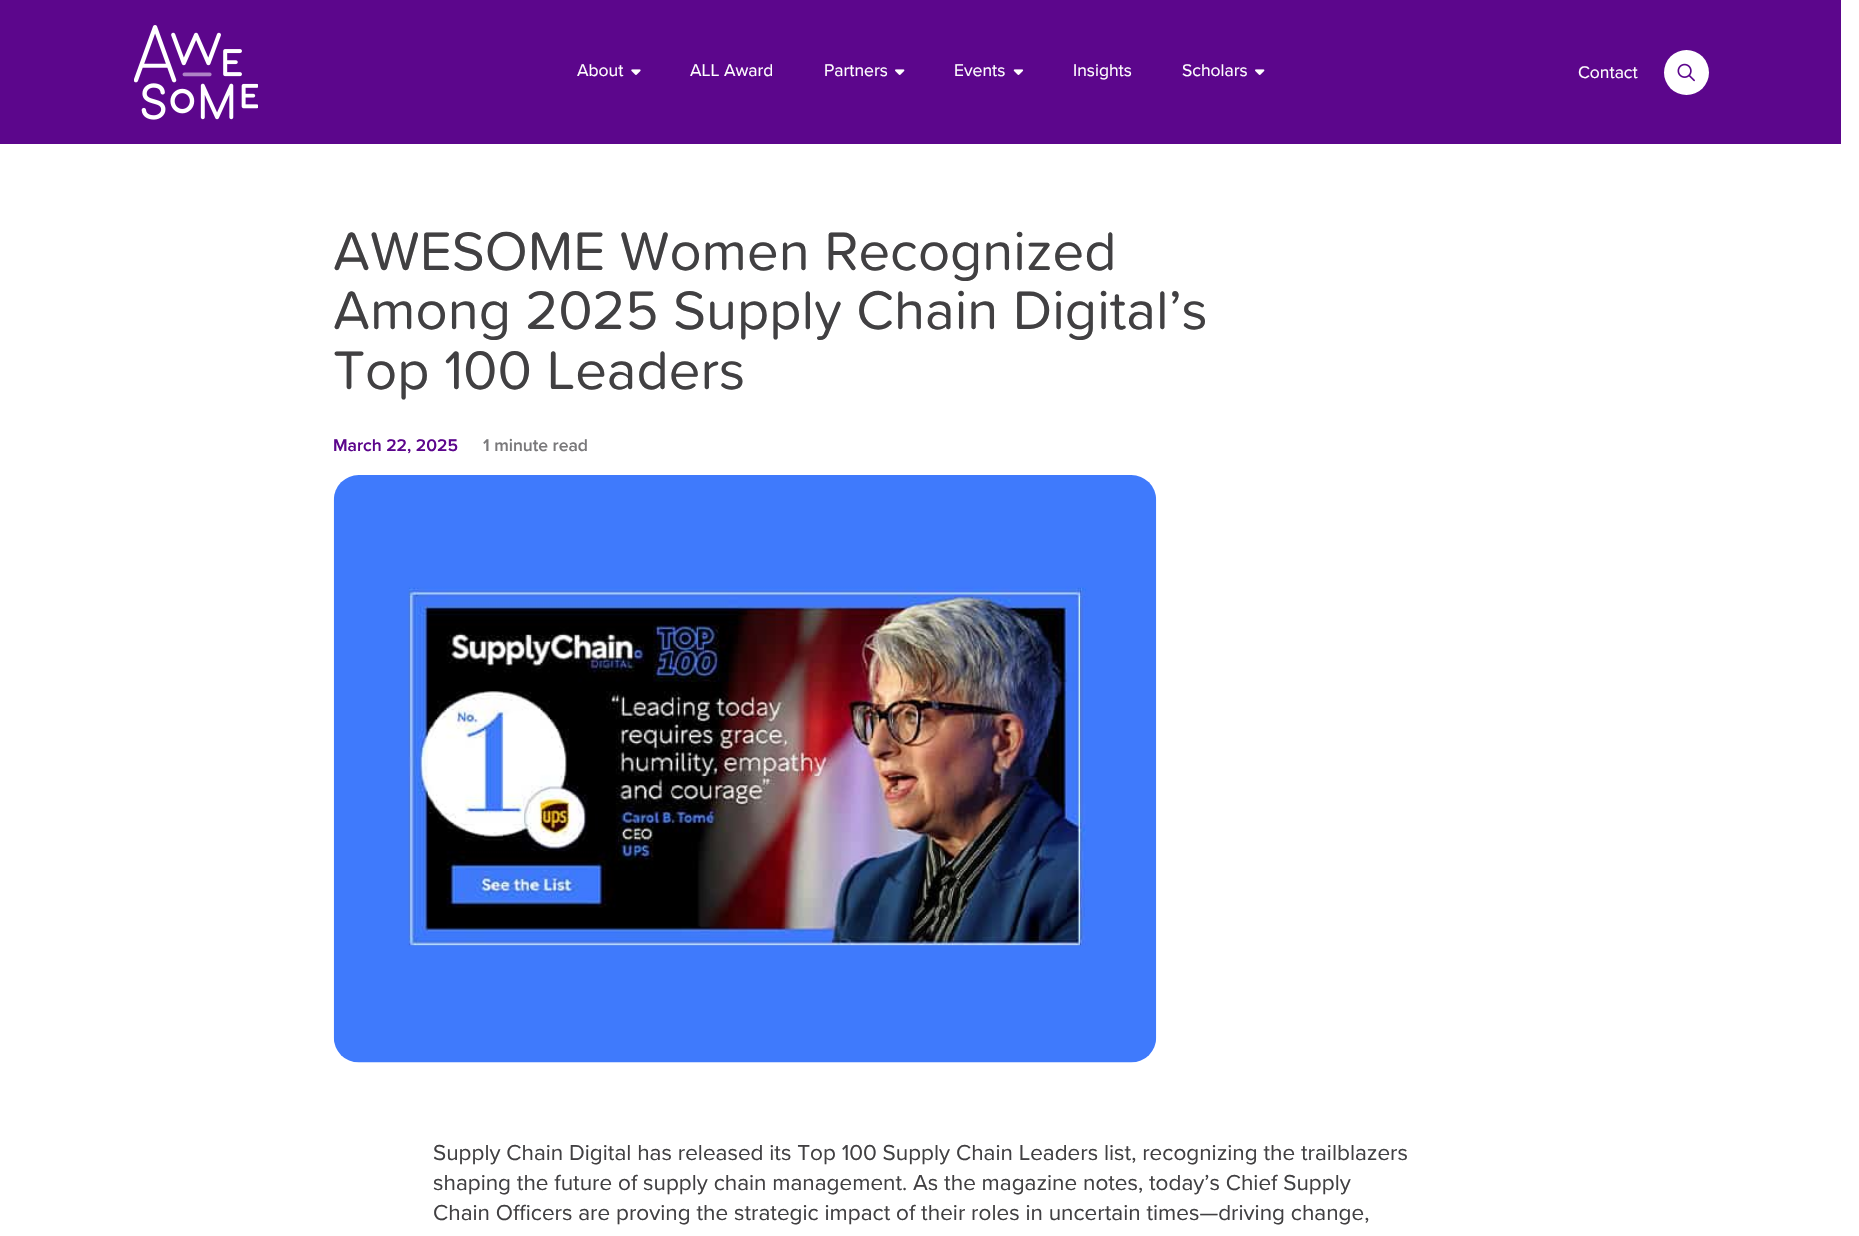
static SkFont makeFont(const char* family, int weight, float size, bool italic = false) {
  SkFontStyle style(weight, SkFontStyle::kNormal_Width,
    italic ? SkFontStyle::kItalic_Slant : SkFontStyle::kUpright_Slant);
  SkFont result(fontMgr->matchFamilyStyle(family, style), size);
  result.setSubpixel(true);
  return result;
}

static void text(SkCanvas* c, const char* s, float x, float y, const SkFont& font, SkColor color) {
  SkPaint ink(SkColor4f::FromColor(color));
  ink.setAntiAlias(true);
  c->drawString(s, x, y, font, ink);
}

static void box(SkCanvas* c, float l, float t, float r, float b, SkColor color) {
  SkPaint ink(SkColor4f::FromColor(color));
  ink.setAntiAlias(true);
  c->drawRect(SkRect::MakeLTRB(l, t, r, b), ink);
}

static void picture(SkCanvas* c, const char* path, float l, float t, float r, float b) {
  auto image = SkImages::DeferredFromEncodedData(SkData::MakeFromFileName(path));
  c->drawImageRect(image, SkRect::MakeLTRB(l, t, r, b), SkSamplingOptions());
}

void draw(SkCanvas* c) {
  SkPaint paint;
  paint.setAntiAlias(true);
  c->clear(0xffffffff);
  box(c, 0, 0, 1841, 144, 0xff5c068c);
  picture(c, "img_01.png", 134, 25, 258, 120);
  SkFont face1 = makeFont("Proxima Nova", 400, 17.5f);
  text(c, "About", 577, 76, face1, 0xffffffff);
  picture(c, "img_02.png", 631, 69, 641, 75);
  text(c, "ALL Award", 690, 76, face1, 0xffffffff);
  text(c, "Partners", 824, 76, face1, 0xffffffff);
  picture(c, "img_03.png", 895, 69, 905, 75);
  text(c, "Events", 954, 76, face1, 0xffffffff);
  picture(c, "img_04.png", 1013, 69, 1024, 75);
  text(c, "Insights", 1073, 76, face1, 0xffffffff);
  text(c, "Scholars", 1182, 76, face1, 0xffffffff);
  picture(c, "img_03.png", 1255, 69, 1265, 75);
  text(c, "Contact", 1578, 78, face1, 0xffffffff);
  paint.setColor(0xffffffff);
  c->drawCircle(1686.5f, 72.5f, 22.5f, paint);
  picture(c, "img_05.png", 1677, 63, 1695, 82);
  SkFont face2 = makeFont("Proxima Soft", 400, 56.25f);
  text(c, "AWESOME Women Recognized", 333, 270, face2, 0xff414042);
  text(c, "Among 2025 Supply Chain Digital’s", 333, 329, face2, 0xff414042);
  text(c, "Top 100 Leaders", 333, 389, face2, 0xff414042);
  SkFont face3 = makeFont("Proxima Nova", 600, 17.5f);
  text(c, "March 22, 2025", 333, 451, face3, 0xff5c068c);
  text(c, "1 minute read", 483, 451, face3, 0xff7a797b);
  picture(c, "img_06.png", 333, 475, 1157, 1063);
  SkFont face4 = makeFont("Proxima Nova", 400, 22.5f);
  text(c, "Supply Chain Digital has released its Top 100 Supply Chain Leaders list, recognizing the trailblazers", 433, 1160, face4, 0xff414042);
  text(c, "shaping the future of supply chain management. As the magazine notes, today’s Chief Supply", 433, 1190, face4, 0xff414042);
  text(c, "Chain Officers are proving the strategic impact of their roles in uncertain times—driving change,", 433, 1220, face4, 0xff414042);
}
